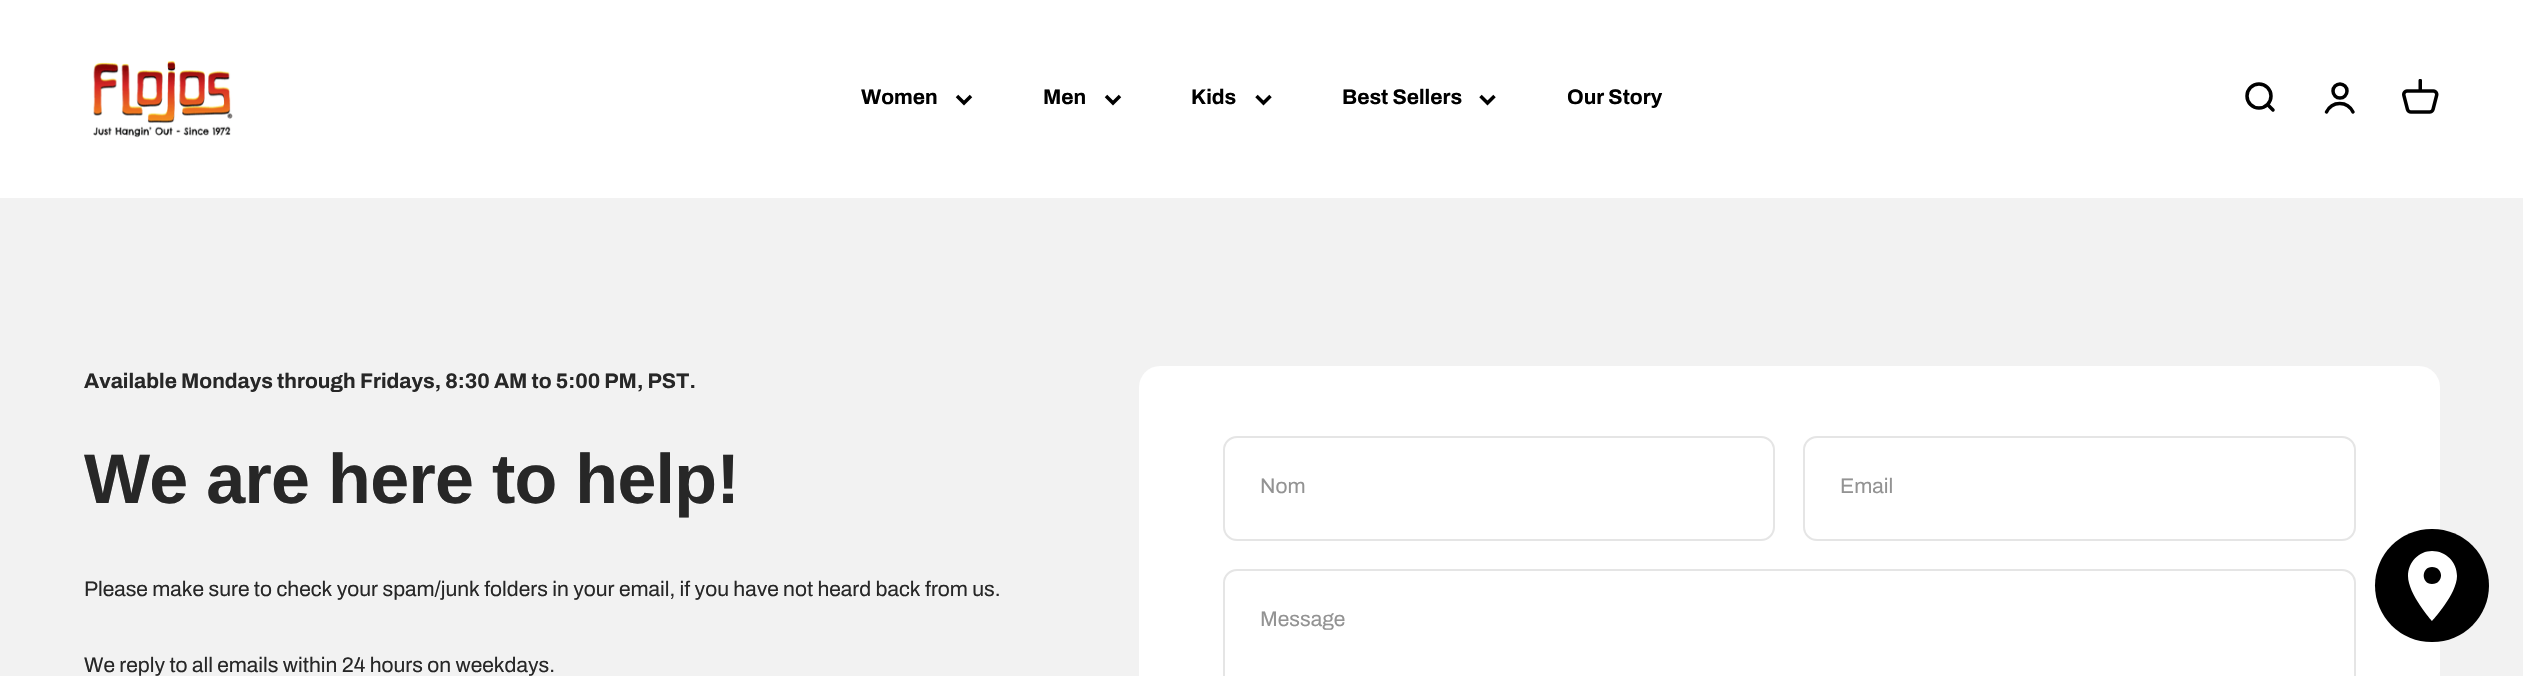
static SkFont makeFont(const char* family, int weight, float size, bool italic = false) {
  SkFontStyle style(weight, SkFontStyle::kNormal_Width,
    italic ? SkFontStyle::kItalic_Slant : SkFontStyle::kUpright_Slant);
  SkFont result(fontMgr->matchFamilyStyle(family, style), size);
  result.setSubpixel(true);
  return result;
}

static void text(SkCanvas* c, const char* s, float x, float y, const SkFont& font, SkColor color) {
  SkPaint ink(SkColor4f::FromColor(color));
  ink.setAntiAlias(true);
  c->drawString(s, x, y, font, ink);
}

static void spacedText(SkCanvas* c, const char* s, float x, float y, const SkFont& font, const SkPaint& ink, float letter, float word) {
  std::vector<SkGlyphID> glyphs(font.countText(s, strlen(s), SkTextEncoding::kUTF8));
  std::vector<float> xs(glyphs.size());
  font.textToGlyphs(s, strlen(s), SkTextEncoding::kUTF8, glyphs);
  font.getXPos(glyphs, xs, x);
  float extra = 0;
  for (size_t i = 0; i < glyphs.size(); i++) {
    xs[i] += extra;
    extra += letter + word * (glyphs[i] == font.unicharToGlyph(' '));
  }
  c->drawTextBlob(SkTextBlob::MakeFromPosHGlyphs(glyphs, xs, y, font), 0, 0, ink);
}

static void box(SkCanvas* c, float l, float t, float r, float b, SkColor color) {
  SkPaint ink(SkColor4f::FromColor(color));
  ink.setAntiAlias(true);
  c->drawRect(SkRect::MakeLTRB(l, t, r, b), ink);
}

static void roundBox(SkCanvas* c, float l, float t, float r, float b, float radius, SkColor color) {
  SkPaint ink(SkColor4f::FromColor(color));
  ink.setAntiAlias(true);
  c->drawRoundRect(SkRect::MakeLTRB(l, t, r, b), radius, radius, ink);
}

static void picture(SkCanvas* c, const char* path, float l, float t, float r, float b) {
  auto image = SkImages::DeferredFromEncodedData(SkData::MakeFromFileName(path));
  c->drawImageRect(image, SkRect::MakeLTRB(l, t, r, b), SkSamplingOptions());
}

void draw(SkCanvas* c) {
  SkPaint paint;
  paint.setAntiAlias(true);
  c->clear(0xffffffff);
  picture(c, "img_01.png", 93, 60, 233, 138);
  SkFont face1 = makeFont("Archivo", 700, 21);
  text(c, "Women", 861, 104, face1, 0xff000000);
  paint.setStyle(SkPaint::kStroke_Style);
  paint.setStrokeWidth(3.5f);
  paint.setColor(0xff000000);
  c->drawPath(SkPathBuilder().moveTo(957, 96).lineTo(964, 103).lineTo(971, 96).detach(), paint);
  text(c, "Men", 1043, 104, face1, 0xff000000);
  c->drawPath(SkPathBuilder().moveTo(1106, 96).lineTo(1113, 103).lineTo(1120, 96).detach(), paint);
  text(c, "Kids", 1191, 104, face1, 0xff000000);
  c->drawPath(SkPathBuilder().moveTo(1256.5f, 96).lineTo(1263.5f, 103).lineTo(1270.5f, 96).detach(), paint);
  text(c, "Best Sellers", 1342, 104, face1, 0xff000000);
  c->drawPath(SkPathBuilder().moveTo(1480.5f, 96).lineTo(1487.5f, 103).lineTo(1494.5f, 96).detach(), paint);
  text(c, "Our Story", 1567, 104, face1, 0xff000000);
  c->drawCircle(2259, 96, 12, paint);
  paint.setStrokeCap(SkPaint::kRound_Cap);
  paint.setStrokeJoin(SkPaint::kRound_Join);
  c->drawPath(SkPathBuilder().moveTo(2268, 105).lineTo(2273, 110).detach(), paint);
  paint.setStrokeCap(SkPaint::kButt_Cap);
  paint.setStrokeJoin(SkPaint::kMiter_Join);
  c->drawCircle(2340, 91, 7, paint);
  paint.setStrokeCap(SkPaint::kRound_Cap);
  c->drawPath(SkPathBuilder().moveTo(2326.5f, 112).cubicTo(2332, 100.5f, 2347.5f, 100.5f, 2353, 112).detach(), paint);
  picture(c, "img_02.png", 2402, 79, 2439, 114);
  box(c, 0, 198, 2523, 676, 0xfff2f2f2);
  text(c, "Available Mondays through Fridays, 8:30 AM to 5:00 PM, PST.", 84, 388, face1, 0xff272727);
  SkFont face2 = makeFont("Liberation Sans", 700, 70);
  paint.setStyle(SkPaint::kFill_Style);
  paint.setColor(0xff272727);
  spacedText(c, "We are here to help!", 84, 503, face2, paint, -0.7f, 0);
  SkFont face3 = makeFont("Archivo", 400, 21);
  text(c, "Please make sure to check your spam/junk folders in your email, if you have not heard back from us.", 84, 596, face3, 0xff272727);
  text(c, "We reply to all emails within 24 hours on weekdays.", 84, 672, face3, 0xff272727);
  roundBox(c, 1139, 366, 2440, 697, 21, 0xffffffff);
  paint.setStyle(SkPaint::kStroke_Style);
  paint.setStrokeWidth(2);
  paint.setStrokeCap(SkPaint::kButt_Cap);
  paint.setColor(0xffe5e5e5);
  c->drawRoundRect(SkRect::MakeLTRB(1224, 437, 1774, 540), 13, 13, paint);
  text(c, "Nom", 1260, 493, face3, 0xff939393);
  c->drawRoundRect(SkRect::MakeLTRB(1804, 437, 2355, 540), 13, 13, paint);
  text(c, "Email", 1840, 493, face3, 0xff939393);
  c->drawRoundRect(SkRect::MakeLTRB(1224, 570, 2355, 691), 13, 13, paint);
  text(c, "Message", 1260, 626, face3, 0xff939393);
  roundBox(c, 2375, 529, 2489, 642, 56.5f, 0xff000000);
  paint.setStyle(SkPaint::kFill_Style);
  paint.setColor(0xffffffff);
  c->drawPath(SkPathBuilder().moveTo(2432, 551).cubicTo(2419, 551, 2408, 562, 2408, 576).cubicTo(2408, 594, 2432, 621, 2432, 621).cubicTo(2432, 621, 2457, 594, 2457, 576).cubicTo(2457, 562, 2446, 551, 2432, 551).close().moveTo(2432, 584).cubicTo(2421, 584, 2421, 567, 2432, 567).cubicTo(2444, 567, 2444, 584, 2432, 584).close().detach(), paint);
}
